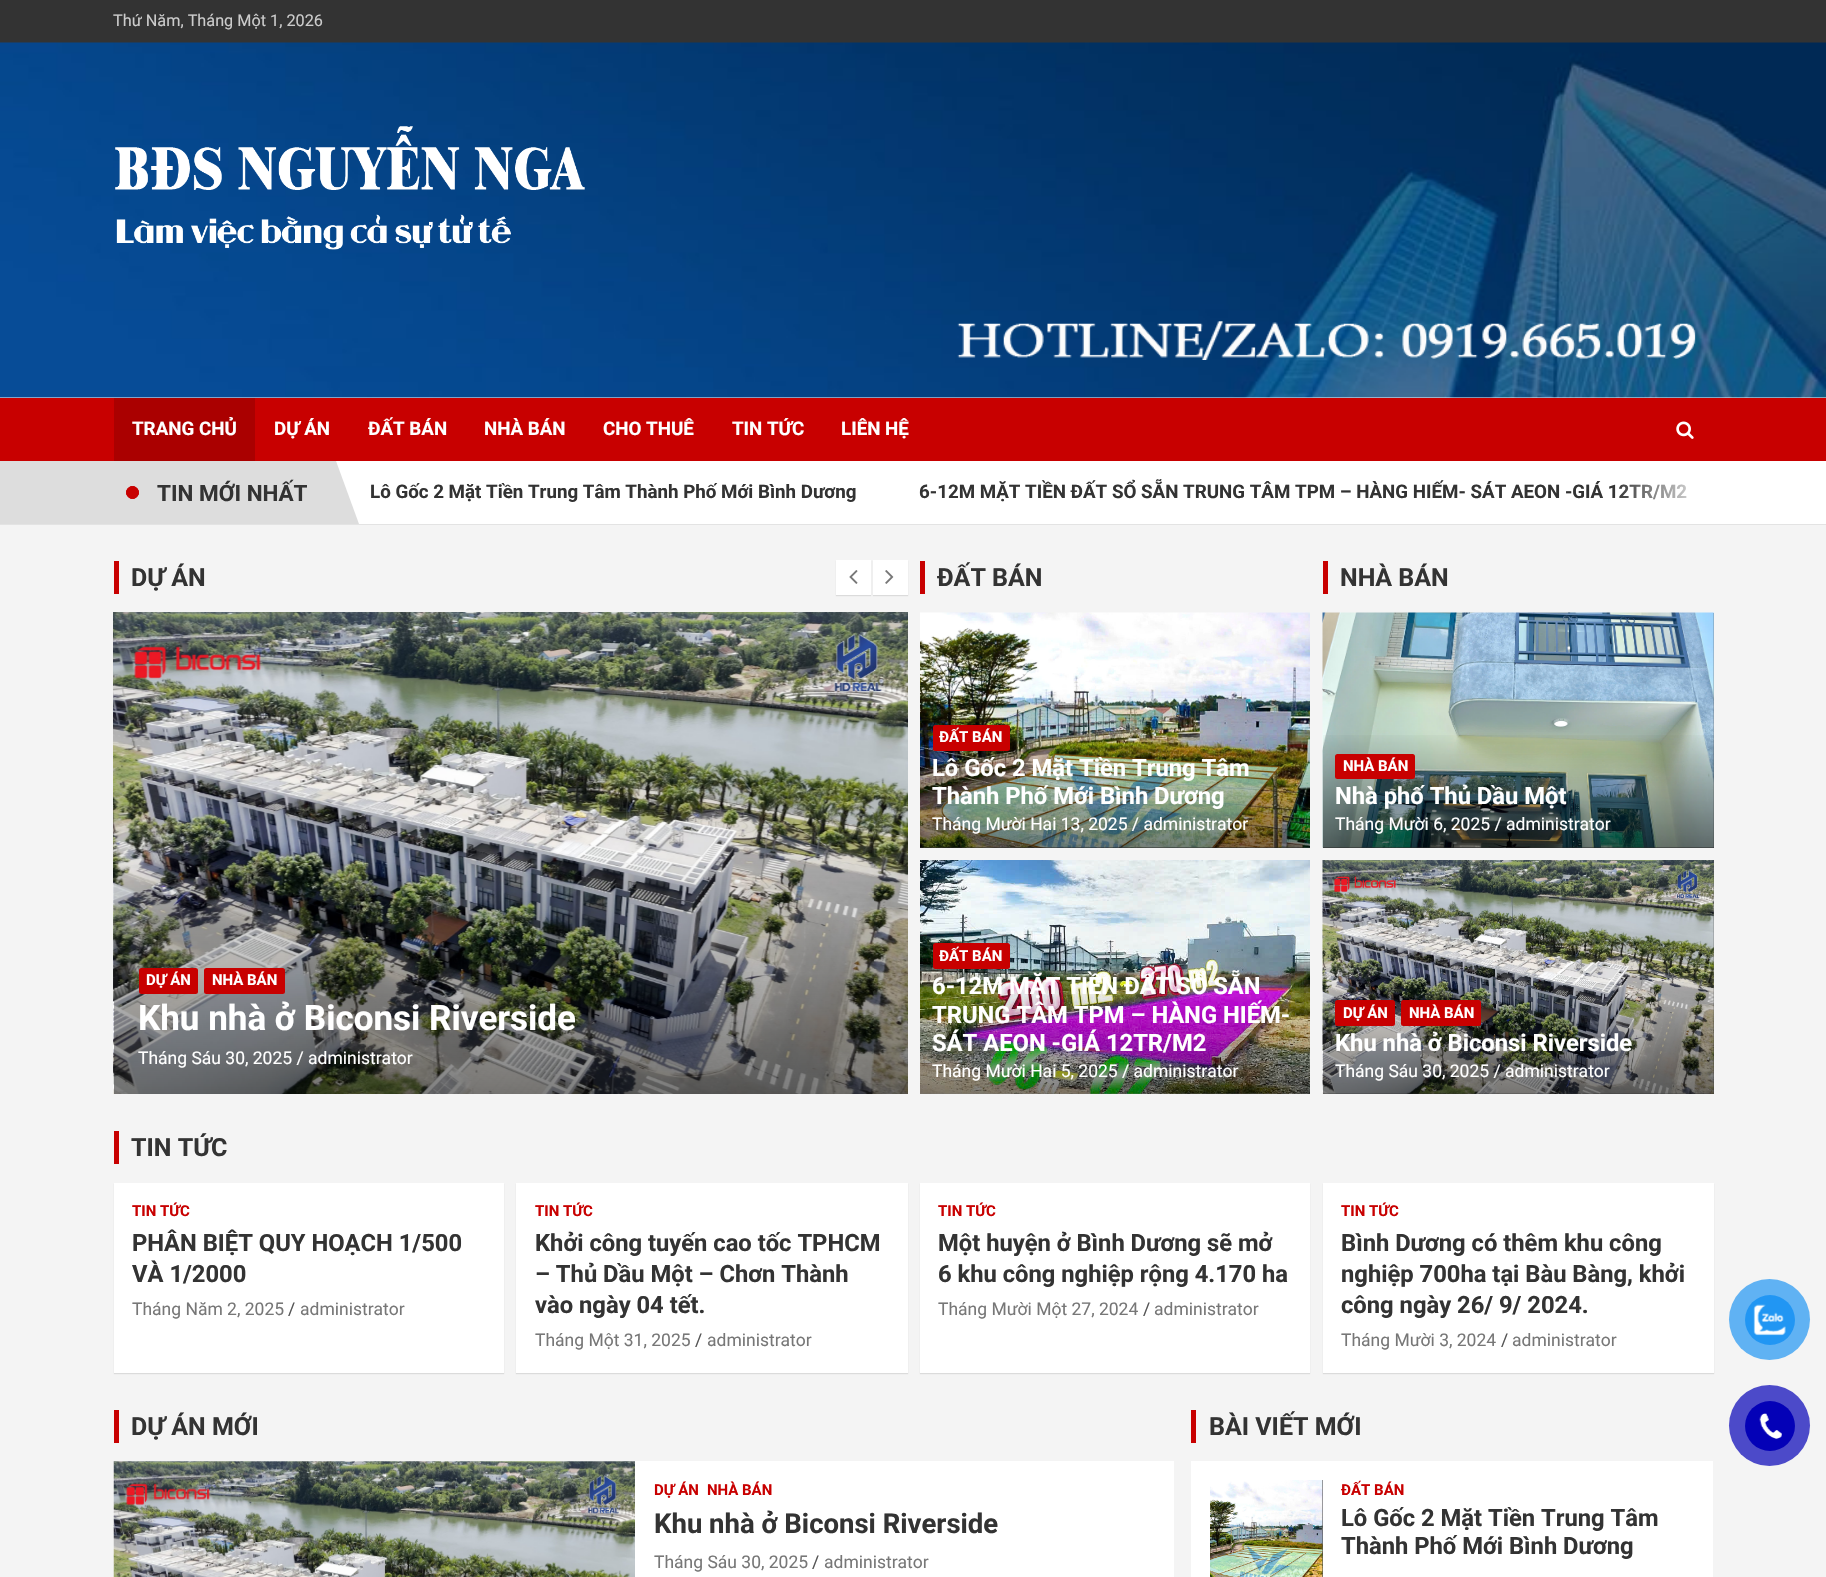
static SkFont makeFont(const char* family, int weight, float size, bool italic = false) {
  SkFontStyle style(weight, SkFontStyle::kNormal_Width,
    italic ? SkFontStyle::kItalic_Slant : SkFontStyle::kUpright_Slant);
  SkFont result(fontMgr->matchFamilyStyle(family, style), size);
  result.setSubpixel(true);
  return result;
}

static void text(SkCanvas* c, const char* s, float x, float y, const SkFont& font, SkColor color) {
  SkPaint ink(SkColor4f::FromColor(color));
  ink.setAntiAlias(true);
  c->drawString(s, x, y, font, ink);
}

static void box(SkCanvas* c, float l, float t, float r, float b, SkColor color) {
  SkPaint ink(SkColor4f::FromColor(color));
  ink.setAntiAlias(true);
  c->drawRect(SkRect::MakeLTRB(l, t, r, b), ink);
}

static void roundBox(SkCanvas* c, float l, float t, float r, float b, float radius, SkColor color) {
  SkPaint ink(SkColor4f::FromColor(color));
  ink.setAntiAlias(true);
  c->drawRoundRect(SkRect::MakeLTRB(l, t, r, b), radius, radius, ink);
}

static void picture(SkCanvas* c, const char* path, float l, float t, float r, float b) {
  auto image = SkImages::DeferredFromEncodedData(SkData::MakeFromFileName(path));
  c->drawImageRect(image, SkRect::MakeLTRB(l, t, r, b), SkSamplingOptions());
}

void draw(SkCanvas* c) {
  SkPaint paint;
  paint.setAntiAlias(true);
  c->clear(0xfff4f4f4);
  box(c, 0, 0, 1826, 43, 0xff333333);
  SkFont face1 = makeFont("Roboto", 400, 16.25f);
  text(c, "Thứ Năm, Tháng Một 1, 2026", 113, 26, face1, 0xffcccccc);
  box(c, 0, 397, 1826, 398, 0xffffffff);
  picture(c, "img_01.png", 0, 42, 1826, 398);
  picture(c, "img_02.png", 115, 126, 585, 250);
  picture(c, "img_03.png", 957, 321, 1696, 360);
  box(c, 0, 398, 1826, 461, 0xffc80000);
  box(c, 114, 398, 255, 461, 0xffaa0000);
  SkFont face2 = makeFont("Roboto", 700, 18.75f);
  text(c, "TRANG CHỦ", 132, 435, face2, 0xffffffff);
  text(c, "DỰ ÁN", 274, 435, face2, 0xffffffff);
  text(c, "ĐẤT BÁN", 368, 435, face2, 0xffffffff);
  text(c, "NHÀ BÁN", 484, 435, face2, 0xffffffff);
  text(c, "CHO THUÊ", 603, 435, face2, 0xffffffff);
  text(c, "TIN TỨC", 732, 435, face2, 0xffffffff);
  text(c, "LIÊN HỆ", 841, 435, face2, 0xffffffff);
  picture(c, "img_04.png", 1676, 421, 1694, 439);
  box(c, 0, 524, 1826, 525, 0xffe3e3e3);
  box(c, 336, 461, 1826, 524, 0xffffffff);
  box(c, 0, 461, 276, 524, 0xffdddddd);
  paint.setColor(0xffdddddd);
  c->drawPath(SkPathBuilder().moveTo(253, 461).lineTo(336, 461).lineTo(359, 524).lineTo(276, 524).close().detach(), paint);
  paint.setColor(0xffc80000);
  c->drawCircle(132.5f, 492.5f, 6, paint);
  paint.setStyle(SkPaint::kStroke_Style);
  paint.setStrokeWidth(1);
  c->drawCircle(132.5f, 492.5f, 6, paint);
  c->drawCircle(132.5f, 492.5f, 6, paint);
  SkFont face3 = makeFont("Roboto", 700, 22.5f);
  text(c, "TIN MỚI NHẤT", 157, 501, face3, 0xff333333);
  text(c, "Lô Gốc 2 Mặt Tiền Trung Tâm Thành Phố Mới Bình Dương", 370, 498, face2, 0xff333333);
  text(c, "6-12M MẶT TIỀN ĐẤT SỔ SẴN TRUNG TÂM TPM – HÀNG HIẾM- SÁT AEON -GIÁ 12TR/M2", 919, 498, face2, 0xff333333);
  paint.setStyle(SkPaint::kFill_Style);
  {
    const SkColor colors[] = {0x00ffffff, 0xffffffff};
    const float stops[] = {0, 1};
    const SkPoint ends[] = {{1614, 493}, {1714, 493}};
    paint.setShader(SkGradientShader::MakeLinear(ends, colors, stops, 2, SkTileMode::kClamp));
    paint.setAlpha(255);
  }
  c->drawRect(SkRect::MakeLTRB(1619, 484, 1687, 500), paint);
  box(c, 114, 561, 119, 594, 0xffc80000);
  SkFont face4 = makeFont("Roboto", 700, 25);
  text(c, "DỰ ÁN", 131, 586, face4, 0xff333333);
  paint.setShader(nullptr);
  paint.setColor(0x1a000000);
  paint.setMaskFilter(SkMaskFilter::MakeBlur(kNormal_SkBlurStyle, 0.5f));
  c->drawRect(SkRect::MakeLTRB(836, 561, 871, 596), paint);
  paint.setMaskFilter(nullptr);
  box(c, 836, 560, 871, 595, 0xffffffff);
  picture(c, "img_05.png", 849, 570, 858, 584);
  paint.setMaskFilter(SkMaskFilter::MakeBlur(kNormal_SkBlurStyle, 0.5f));
  c->drawRect(SkRect::MakeLTRB(873, 561, 908, 596), paint);
  paint.setMaskFilter(nullptr);
  box(c, 873, 560, 908, 595, 0xffffffff);
  picture(c, "img_06.png", 885, 570, 894, 584);
  picture(c, "img_07.png", 113, 612, 908, 1094);
  roundBox(c, 139, 968, 198, 994, 2.5f, 0xffc80000);
  SkFont face5 = makeFont("Roboto", 700, 15);
  text(c, "DỰ ÁN", 146, 985, face5, 0xffffffff);
  roundBox(c, 204, 968, 285, 994, 2.5f, 0xffc80000);
  text(c, "NHÀ BÁN", 212, 985, face5, 0xffffffff);
  SkFont face6 = makeFont("Roboto", 700, 35);
  text(c, "Khu nhà ở Biconsi Riverside", 138, 1030, face6, 0xffffffff);
  SkFont face7 = makeFont("Roboto", 400, 17.5f);
  text(c, "Tháng Sáu 30, 2025 / administrator", 138, 1064, face7, 0xffffffff);
  box(c, 920, 561, 925, 594, 0xffc80000);
  text(c, "ĐẤT BÁN", 937, 586, face4, 0xff333333);
  box(c, 920, 847, 1310, 848, 0xff555555);
  picture(c, "img_08.png", 920, 612, 1310, 848);
  {
    const SkColor colors[] = {0x00000000, 0x80000000};
    const float stops[] = {0.5f, 1};
    const SkPoint ends[] = {{1115, 612}, {1115, 848}};
    paint.setShader(SkGradientShader::MakeLinear(ends, colors, stops, 2, SkTileMode::kClamp));
    paint.setAlpha(255);
  }
  c->drawRect(SkRect::MakeLTRB(920, 735, 1310, 848), paint);
  roundBox(c, 933, 725, 1010, 751, 2.5f, 0xffc80000);
  text(c, "ĐẤT BÁN", 939, 742, face5, 0xffffffff);
  SkFont face8 = makeFont("Roboto", 700, 23.75f);
  text(c, "Lô Gốc 2 Mặt Tiền Trung Tâm", 932, 776, face8, 0xffffffff);
  text(c, "Thành Phố Mới Bình Dương", 932, 804, face8, 0xffffffff);
  text(c, "Tháng Mười Hai 13, 2025 / administrator", 932, 830, face7, 0xffffffff);
  picture(c, "img_09.png", 920, 860, 1310, 1094);
  {
    const SkColor colors[] = {0x00000000, 0x80000000};
    const float stops[] = {0.5f, 1};
    const SkPoint ends[] = {{1115, 859}, {1115, 1095}};
    paint.setShader(SkGradientShader::MakeLinear(ends, colors, stops, 2, SkTileMode::kClamp));
    paint.setAlpha(255);
  }
  c->drawRect(SkRect::MakeLTRB(920, 982, 1310, 1094), paint);
  roundBox(c, 933, 943, 1010, 969, 2.5f, 0xffc80000);
  text(c, "ĐẤT BÁN", 939, 961, face5, 0xffffffff);
  text(c, "6-12M MẶT TIỀN ĐẤT SỔ SẴN", 932, 994, face8, 0xffffffff);
  text(c, "TRUNG TÂM TPM – HÀNG HIẾM-", 932, 1023, face8, 0xffffffff);
  text(c, "SÁT AEON -GIÁ 12TR/M2", 932, 1051, face8, 0xffffffff);
  text(c, "Tháng Mười Hai 5, 2025 / administrator", 932, 1077, face7, 0xffffffff);
  box(c, 1323, 561, 1328, 594, 0xffc80000);
  text(c, "NHÀ BÁN", 1340, 586, face4, 0xff333333);
  box(c, 1323, 613, 1714, 848, 0xff555555);
  picture(c, "img_10.png", 1322, 612, 1714, 848);
  {
    const SkColor colors[] = {0x00000000, 0x80000000};
    const float stops[] = {0.5f, 1};
    const SkPoint ends[] = {{1518, 612}, {1518, 848}};
    paint.setShader(SkGradientShader::MakeLinear(ends, colors, stops, 2, SkTileMode::kClamp));
    paint.setAlpha(255);
  }
  c->drawRect(SkRect::MakeLTRB(1323, 735, 1714, 848), paint);
  roundBox(c, 1335, 754, 1415, 779, 2.5f, 0xffc80000);
  text(c, "NHÀ BÁN", 1343, 771, face5, 0xffffffff);
  text(c, "Nhà phố Thủ Dầu Một", 1335, 804, face8, 0xffffffff);
  text(c, "Tháng Mười 6, 2025 / administrator", 1335, 830, face7, 0xffffffff);
  box(c, 1323, 860, 1714, 1094, 0xff555555);
  picture(c, "img_11.png", 1322, 860, 1714, 1094);
  {
    const SkColor colors[] = {0x00000000, 0x80000000};
    const float stops[] = {0.5f, 1};
    const SkPoint ends[] = {{1518, 859}, {1518, 1095}};
    paint.setShader(SkGradientShader::MakeLinear(ends, colors, stops, 2, SkTileMode::kClamp));
    paint.setAlpha(255);
  }
  c->drawRect(SkRect::MakeLTRB(1323, 982, 1714, 1094), paint);
  roundBox(c, 1335, 1000, 1395, 1026, 2.5f, 0xffc80000);
  text(c, "DỰ ÁN", 1343, 1018, face5, 0xffffffff);
  roundBox(c, 1401, 1000, 1481, 1026, 2.5f, 0xffc80000);
  text(c, "NHÀ BÁN", 1409, 1018, face5, 0xffffffff);
  text(c, "Khu nhà ở Biconsi Riverside", 1335, 1051, face8, 0xffffffff);
  text(c, "Tháng Sáu 30, 2025 / administrator", 1335, 1077, face7, 0xffffffff);
  box(c, 114, 1131, 119, 1164, 0xffc80000);
  text(c, "TIN TỨC", 131, 1156, face4, 0xff333333);
  paint.setShader(nullptr);
  paint.setColor(0x1a000000);
  paint.setMaskFilter(SkMaskFilter::MakeBlur(kNormal_SkBlurStyle, 0.5f));
  c->drawRect(SkRect::MakeLTRB(114, 1184, 504, 1374), paint);
  paint.setMaskFilter(nullptr);
  box(c, 114, 1183, 504, 1373, 0xffffffff);
  text(c, "TIN TỨC", 132, 1216, face5, 0xffc80000);
  text(c, "PHÂN BIỆT QUY HOẠCH 1/500", 132, 1251, face8, 0xff333333);
  text(c, "VÀ 1/2000", 132, 1282, face8, 0xff333333);
  text(c, "Tháng Năm 2, 2025", 132, 1315, face7, 0xff777777);
  text(c, "/", 288, 1315, face7, 0xff555555);
  text(c, "administrator", 300, 1315, face7, 0xff777777);
  paint.setMaskFilter(SkMaskFilter::MakeBlur(kNormal_SkBlurStyle, 0.5f));
  c->drawRect(SkRect::MakeLTRB(516, 1184, 908, 1374), paint);
  paint.setMaskFilter(nullptr);
  box(c, 516, 1183, 908, 1373, 0xffffffff);
  text(c, "TIN TỨC", 535, 1216, face5, 0xffc80000);
  text(c, "Khởi công tuyến cao tốc TPHCM", 535, 1251, face8, 0xff333333);
  text(c, "– Thủ Dầu Một – Chơn Thành", 535, 1282, face8, 0xff333333);
  text(c, "vào ngày 04 tết.", 535, 1313, face8, 0xff333333);
  text(c, "Tháng Một 31, 2025", 535, 1346, face7, 0xff777777);
  text(c, "/", 695, 1346, face7, 0xff555555);
  text(c, "administrator", 707, 1346, face7, 0xff777777);
  paint.setMaskFilter(SkMaskFilter::MakeBlur(kNormal_SkBlurStyle, 0.5f));
  c->drawRect(SkRect::MakeLTRB(920, 1184, 1310, 1374), paint);
  paint.setMaskFilter(nullptr);
  box(c, 920, 1183, 1310, 1373, 0xffffffff);
  text(c, "TIN TỨC", 938, 1216, face5, 0xffc80000);
  text(c, "Một huyện ở Bình Dương sẽ mở", 938, 1251, face8, 0xff333333);
  text(c, "6 khu công nghiệp rộng 4.170 ha", 938, 1282, face8, 0xff333333);
  text(c, "Tháng Mười Một 27, 2024", 938, 1315, face7, 0xff777777);
  text(c, "/", 1143, 1315, face7, 0xff555555);
  text(c, "administrator", 1154, 1315, face7, 0xff777777);
  paint.setMaskFilter(SkMaskFilter::MakeBlur(kNormal_SkBlurStyle, 0.5f));
  c->drawRect(SkRect::MakeLTRB(1323, 1184, 1714, 1374), paint);
  paint.setMaskFilter(nullptr);
  box(c, 1323, 1183, 1714, 1373, 0xffffffff);
  text(c, "TIN TỨC", 1341, 1216, face5, 0xffc80000);
  text(c, "Bình Dương có thêm khu công", 1341, 1251, face8, 0xff333333);
  text(c, "nghiệp 700ha tại Bàu Bàng, khởi", 1341, 1282, face8, 0xff333333);
  text(c, "công ngày 26/ 9/ 2024.", 1341, 1313, face8, 0xff333333);
  text(c, "Tháng Mười 3, 2024", 1341, 1346, face7, 0xff777777);
  text(c, "/", 1501, 1346, face7, 0xff555555);
  text(c, "administrator", 1512, 1346, face7, 0xff777777);
  box(c, 114, 1410, 119, 1443, 0xffc80000);
  text(c, "DỰ ÁN MỚI", 131, 1435, face4, 0xff333333);
  box(c, 114, 1461, 1174, 1577, 0xffffffff);
  picture(c, "img_12.png", 113, 1461, 635, 1577);
  text(c, "DỰ ÁN", 654, 1495, face5, 0xffc80000);
  text(c, "NHÀ BÁN", 707, 1495, face5, 0xffc80000);
  SkFont face9 = makeFont("Roboto", 700, 27.5f);
  text(c, "Khu nhà ở Biconsi Riverside", 654, 1533, face9, 0xff333333);
  text(c, "Tháng Sáu 30, 2025", 654, 1568, face7, 0xff777777);
  text(c, "/", 812, 1568, face7, 0xff555555);
  text(c, "administrator", 824, 1568, face7, 0xff777777);
  box(c, 1191, 1410, 1196, 1443, 0xffc80000);
  text(c, "BÀI VIẾT MỚI", 1209, 1435, face4, 0xff333333);
  box(c, 1191, 1461, 1713, 1577, 0xffffffff);
  box(c, 1322, 1480, 1323, 1577, 0xff555555);
  picture(c, "img_13.png", 1210, 1480, 1323, 1577);
  text(c, "ĐẤT BÁN", 1341, 1495, face5, 0xffc80000);
  text(c, "Lô Gốc 2 Mặt Tiền Trung Tâm", 1341, 1526, face8, 0xff333333);
  text(c, "Thành Phố Mới Bình Dương", 1341, 1554, face8, 0xff333333);
  paint.setColor(0xff60b2f3);
  c->drawCircle(1769.5f, 1319.5f, 40.5f, paint);
  paint.setColor(0xff2196f3);
  c->drawCircle(1770, 1320, 25, paint);
  picture(c, "img_14.png", 1753, 1304, 1786, 1336);
  paint.setColor(0xff4c4ac9);
  c->drawCircle(1769.5f, 1425.5f, 40.5f, paint);
  paint.setColor(0xff0401b7);
  c->drawCircle(1770, 1426, 25, paint);
  picture(c, "img_15.png", 1759, 1413, 1782, 1439);
}
